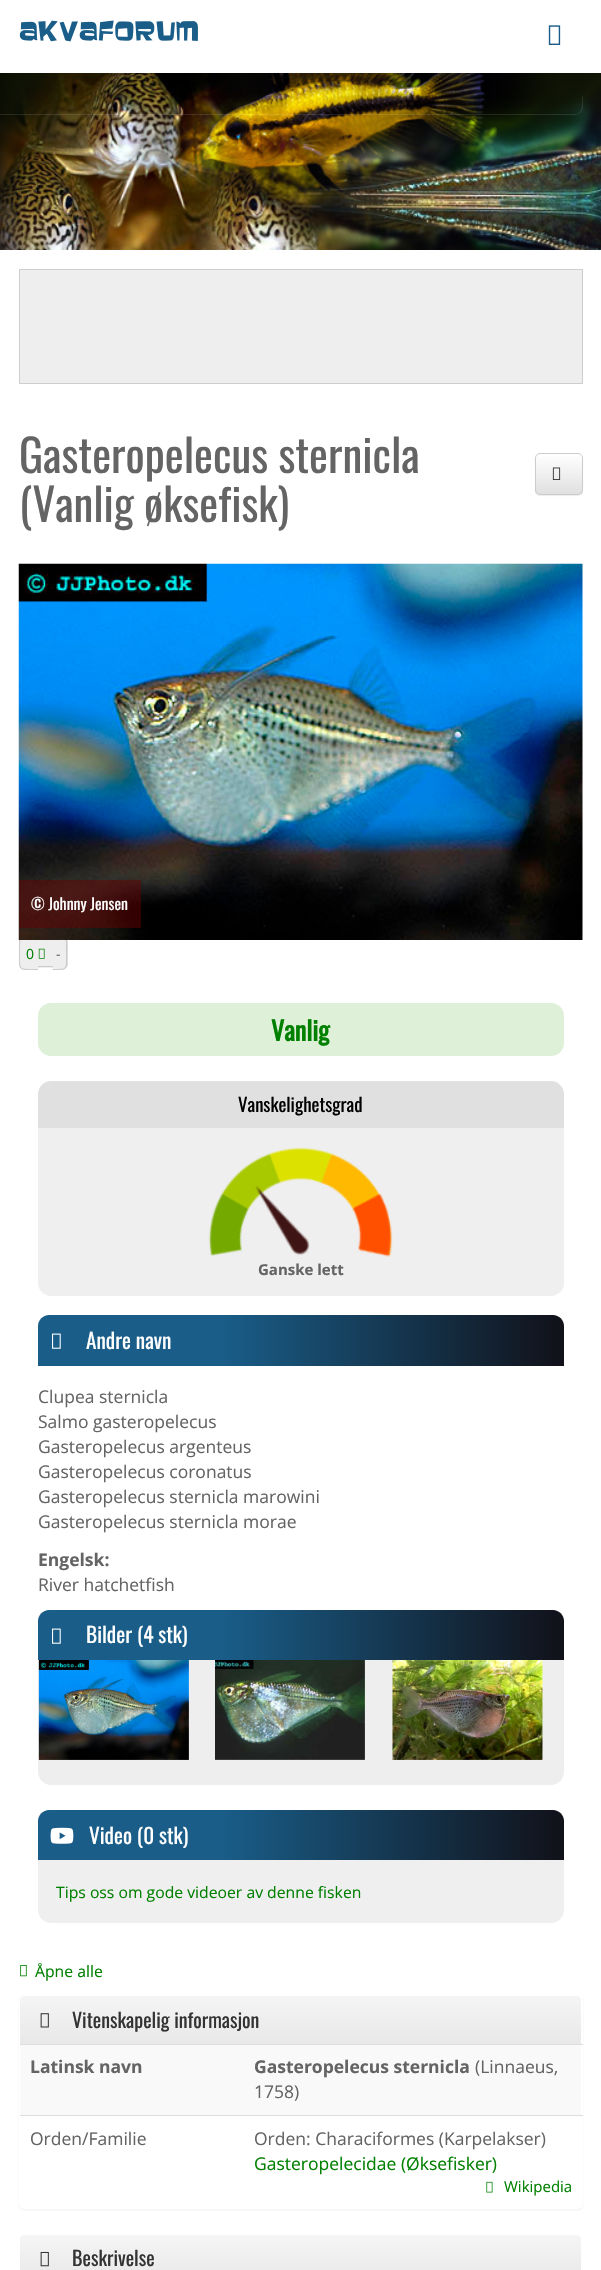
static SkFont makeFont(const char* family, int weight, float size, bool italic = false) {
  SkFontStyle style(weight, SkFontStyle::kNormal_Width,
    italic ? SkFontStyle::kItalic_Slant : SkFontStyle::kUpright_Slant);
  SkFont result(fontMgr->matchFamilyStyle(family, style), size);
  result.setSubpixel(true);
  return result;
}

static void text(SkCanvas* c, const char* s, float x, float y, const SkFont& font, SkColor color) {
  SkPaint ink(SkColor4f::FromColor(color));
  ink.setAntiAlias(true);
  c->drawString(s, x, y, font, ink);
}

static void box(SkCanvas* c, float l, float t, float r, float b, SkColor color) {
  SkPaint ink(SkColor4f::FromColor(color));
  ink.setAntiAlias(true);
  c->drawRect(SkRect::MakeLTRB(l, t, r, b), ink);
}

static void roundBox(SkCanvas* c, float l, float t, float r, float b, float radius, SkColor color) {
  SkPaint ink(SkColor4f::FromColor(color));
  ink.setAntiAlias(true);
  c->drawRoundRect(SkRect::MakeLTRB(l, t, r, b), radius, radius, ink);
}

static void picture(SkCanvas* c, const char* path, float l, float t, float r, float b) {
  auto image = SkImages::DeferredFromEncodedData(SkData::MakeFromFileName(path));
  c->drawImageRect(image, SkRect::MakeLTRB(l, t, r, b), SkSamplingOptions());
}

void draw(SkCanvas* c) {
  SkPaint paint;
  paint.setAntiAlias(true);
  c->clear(0xffffffff);
  picture(c, "img_01.png", 19, 20, 198, 42);
  picture(c, "img_02.png", 548, 25, 561, 45);
  picture(c, "img_03.png", 0, 73, 601, 250);
  paint.setColor(0x1affffff);
  c->drawPath(SkPathBuilder().moveTo(-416, 110).cubicTo(-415, 113, -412, 115, -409, 115).lineTo(575, 115).cubicTo(579, 115, 583, 111, 583, 107).lineTo(583, 98).lineTo(582, 95).lineTo(582, 101).cubicTo(582, 107, 582, 114, 575, 114).lineTo(-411, 114).cubicTo(-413, 113, -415, 112, -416, 110).close().detach(), paint);
  paint.setColor(0xffeeeeee);
  c->drawRect(SkRect::MakeLTRB(19.5f, 269.5f, 582.5f, 383.5f), paint);
  paint.setStyle(SkPaint::kStroke_Style);
  paint.setStrokeWidth(1);
  paint.setColor(0xffcecece);
  c->drawRect(SkRect::MakeLTRB(19.5f, 269.5f, 582.5f, 383.5f), paint);
  SkFont face1 = makeFont("Oswald", 400, 45);
  text(c, "Gasteropelecus sternicla", 19, 473, face1, 0xff646464);
  text(c, "(Vanlig øksefisk)", 19, 522, face1, 0xff646464);
  paint.setStyle(SkPaint::kFill_Style);
  paint.setColor(0x12000000);
  paint.setMaskFilter(SkMaskFilter::MakeBlur(kNormal_SkBlurStyle, 0.5f));
  c->drawRoundRect(SkRect::MakeLTRB(535, 454, 583, 496), 5, 5, paint);
  paint.setMaskFilter(nullptr);
  c->save();
  c->clipPath(SkPathBuilder().moveTo(540, 453).lineTo(578, 453).cubicTo(581, 453, 583, 455, 583, 458).lineTo(583, 490).cubicTo(583, 493, 581, 495, 578, 495).lineTo(540, 495).cubicTo(537, 495, 535, 493, 535, 490).lineTo(535, 458).cubicTo(535, 455, 537, 453, 540, 453).close().detach(), true);
  {
    const SkColor colors[] = {0xffffffff, 0xffe0e0e0};
    const float stops[] = {0, 1};
    const SkPoint ends[] = {{559, 454}, {559, 494}};
    paint.setShader(SkGradientShader::MakeLinear(ends, colors, stops, 2, SkTileMode::kClamp));
    paint.setAlpha(255);
  }
  c->drawRect(SkRect::MakeLTRB(535, 454, 583, 494), paint);
  c->restore();
  paint.setStyle(SkPaint::kStroke_Style);
  paint.setShader(nullptr);
  paint.setColor(0xffcccccc);
  c->drawRoundRect(SkRect::MakeLTRB(535.5f, 453.5f, 582.5f, 494.5f), 4.5f, 4.5f, paint);
  picture(c, "img_04.png", 552, 467, 561, 480);
  paint.setStyle(SkPaint::kFill_Style);
  paint.setColor(0xffeeeeee);
  c->drawPath(SkPathBuilder().moveTo(25, 936).lineTo(34, 936).lineTo(34, 970).lineTo(25, 970).cubicTo(21.5f, 970, 19, 967.5f, 19, 964).lineTo(19, 942).cubicTo(19, 938.5f, 21.5f, 936, 25, 936).close().detach(), paint);
  paint.setColor(0xffcccccc);
  c->drawPath(SkPathBuilder(SkPathFillType::kEvenOdd).moveTo(25, 936).lineTo(34, 936).lineTo(34, 970).lineTo(25, 970).cubicTo(21.5f, 970, 19, 967, 19, 964).lineTo(19, 942.5f).cubicTo(19, 939, 21.5f, 936, 25, 936).close().moveTo(25, 937.5f).lineTo(34, 937.5f).lineTo(34, 969).cubicTo(18.5f, 969, 20, 969.5f, 20, 953).lineTo(20, 946).cubicTo(20, 942.5f, 20, 937.5f, 25, 937.5f).close().detach(), paint);
  box(c, 34, 936, 38, 970, 0xffeeeeee);
  paint.setColor(0xffeeeeee);
  c->drawPath(SkPathBuilder().moveTo(53, 936).lineTo(62, 936).cubicTo(65.5f, 936, 68, 938.5f, 68, 942).lineTo(68, 964).cubicTo(68, 967.5f, 65.5f, 970, 62, 970).lineTo(53, 970).close().detach(), paint);
  box(c, 38, 940, 53, 968, 0xffeeeeee);
  box(c, 38, 966, 53, 967, 0xffcccccc);
  paint.setColor(0xffcccccc);
  c->drawPath(SkPathBuilder(SkPathFillType::kEvenOdd).moveTo(52.5f, 936).lineTo(61, 936).cubicTo(64.5f, 936, 67.5f, 939, 67.5f, 942.5f).lineTo(67.5f, 964).cubicTo(67.5f, 967, 64.5f, 970, 61, 970).lineTo(52.5f, 970).close().moveTo(52.5f, 937.5f).cubicTo(68, 937.5f, 66, 937, 66, 953).cubicTo(66, 969.5f, 68, 969, 52.5f, 969).close().detach(), paint);
  picture(c, "img_05.png", 18, 563, 583, 940);
  box(c, 19, 880, 141, 928, 0x80640000);
  SkFont face2 = makeFont("Oswald", 400, 15.75f);
  text(c, "© Johnny Jensen", 31, 910, face2, 0xffffffff);
  box(c, 34, 969, 38, 970, 0xffcccccc);
  SkFont face3 = makeFont("Open Sans", 400, 14);
  text(c, "0", 26, 959, face3, 0xff008000);
  picture(c, "img_06.png", 38, 948, 45, 959);
  text(c, "-", 56, 959, face3, 0xff646464);
  roundBox(c, 38, 1003, 564, 1056, 13, 0xffdff0d8);
  SkFont face4 = makeFont("Oswald", 700, 26);
  text(c, "Vanlig", 271, 1041, face4, 0xff008000);
  paint.setColor(0xffe0e0e0);
  c->drawPath(SkPathBuilder().moveTo(51, 1081).lineTo(551, 1081).cubicTo(558, 1081, 564, 1087, 564, 1094).lineTo(564, 1128).lineTo(38, 1128).lineTo(38, 1094).cubicTo(38, 1087, 44, 1081, 51, 1081).close().detach(), paint);
  SkFont face5 = makeFont("Oswald", 400, 18.75f);
  text(c, "Vanskelighetsgrad", 238, 1112, face5, 0xff000000);
  paint.setColor(0xffefefef);
  c->drawPath(SkPathBuilder().moveTo(38, 1128).lineTo(564, 1128).lineTo(564, 1283).cubicTo(564, 1290, 558, 1296, 551, 1296).lineTo(51, 1296).cubicTo(44, 1296, 38, 1290, 38, 1283).close().detach(), paint);
  picture(c, "img_07.png", 208, 1147, 393, 1257);
  SkFont face6 = makeFont("Open Sans", 700, 15);
  text(c, "Ganske lett", 258, 1275, face6, 0xff646464);
  {
    const SkColor colors[] = {0xff195d88, 0xff111119};
    const float stops[] = {0.35f, 1};
    const SkPoint ends[] = {{38, 1341}, {564, 1341}};
    paint.setShader(SkGradientShader::MakeLinear(ends, colors, stops, 2, SkTileMode::kClamp));
    paint.setAlpha(255);
  }
  c->drawPath(SkPathBuilder().moveTo(49, 1315).lineTo(553, 1315).cubicTo(559, 1315, 564, 1320, 564, 1326).lineTo(564, 1366).lineTo(38, 1366).lineTo(38, 1326).cubicTo(38, 1320, 43, 1315, 49, 1315).close().detach(), paint);
  picture(c, "img_08.png", 52, 1333, 61, 1349);
  SkFont face7 = makeFont("Oswald", 400, 21.25f);
  text(c, "Andre navn", 86, 1349, face7, 0xffffffff);
  SkFont face8 = makeFont("Open Sans", 400, 17.5f);
  text(c, "Clupea sternicla", 38, 1403, face8, 0xff646464);
  text(c, "Salmo gasteropelecus", 38, 1428, face8, 0xff646464);
  text(c, "Gasteropelecus argenteus", 38, 1453, face8, 0xff646464);
  text(c, "Gasteropelecus coronatus", 38, 1478, face8, 0xff646464);
  text(c, "Gasteropelecus sternicla marowini", 38, 1503, face8, 0xff646464);
  text(c, "Gasteropelecus sternicla morae", 38, 1528, face8, 0xff646464);
  SkFont face9 = makeFont("Open Sans", 700, 17.5f);
  text(c, "Engelsk:", 38, 1566, face9, 0xff646464);
  text(c, "River hatchetfish", 38, 1591, face8, 0xff646464);
  {
    const SkColor colors[] = {0xff195d88, 0xff111119};
    const float stops[] = {0.35f, 1};
    const SkPoint ends[] = {{38, 1635}, {564, 1635}};
    paint.setShader(SkGradientShader::MakeLinear(ends, colors, stops, 2, SkTileMode::kClamp));
    paint.setAlpha(255);
  }
  c->drawPath(SkPathBuilder().moveTo(49, 1610).lineTo(553, 1610).cubicTo(559, 1610, 564, 1615, 564, 1621).lineTo(564, 1660).lineTo(38, 1660).lineTo(38, 1621).cubicTo(38, 1615, 43, 1610, 49, 1610).close().detach(), paint);
  picture(c, "img_08.png", 52, 1628, 61, 1644);
  text(c, "Bilder (4 stk)", 86, 1643, face7, 0xffffffff);
  paint.setShader(nullptr);
  paint.setColor(0xffeeeeee);
  c->drawPath(SkPathBuilder().moveTo(38, 1660).lineTo(564, 1660).lineTo(564, 1772).cubicTo(564, 1779, 558, 1785, 551, 1785).lineTo(51, 1785).cubicTo(44, 1785, 38, 1779, 38, 1772).close().detach(), paint);
  picture(c, "img_09.png", 38, 1660, 189, 1760);
  picture(c, "img_10.png", 215, 1660, 365, 1760);
  picture(c, "img_11.png", 392, 1660, 543, 1760);
  {
    const SkColor colors[] = {0xff195d88, 0xff111119};
    const float stops[] = {0.35f, 1};
    const SkPoint ends[] = {{38, 1835}, {564, 1835}};
    paint.setShader(SkGradientShader::MakeLinear(ends, colors, stops, 2, SkTileMode::kClamp));
    paint.setAlpha(255);
  }
  c->drawPath(SkPathBuilder().moveTo(49, 1810).lineTo(553, 1810).cubicTo(559, 1810, 564, 1815, 564, 1821).lineTo(564, 1860).lineTo(38, 1860).lineTo(38, 1821).cubicTo(38, 1815, 43, 1810, 49, 1810).close().detach(), paint);
  picture(c, "img_12.png", 50, 1827, 74, 1844);
  text(c, "Video (0 stk)", 89, 1844, face7, 0xffffffff);
  paint.setShader(nullptr);
  paint.setColor(0xffefefef);
  c->drawPath(SkPathBuilder().moveTo(38, 1860).lineTo(564, 1860).lineTo(564, 1910).cubicTo(564, 1917, 558, 1923, 551, 1923).lineTo(51, 1923).cubicTo(44, 1923, 38, 1917, 38, 1910).close().detach(), paint);
  SkFont face10 = makeFont("Open Sans", 400, 15.75f);
  text(c, "Tips oss om gode videoer av denne fisken", 56, 1898, face10, 0xff008000);
  picture(c, "img_13.png", 20, 1965, 27, 1977);
  text(c, "Åpne alle", 35, 1977, face10, 0xff008000);
  paint.setColor(0x0d000000);
  paint.setMaskFilter(SkMaskFilter::MakeBlur(kNormal_SkBlurStyle, 1));
  c->drawRoundRect(SkRect::MakeLTRB(19, 1996, 583, 2210), 5, 5, paint);
  paint.setMaskFilter(nullptr);
  roundBox(c, 19, 1995, 583, 2209, 5, 0xffffffff);
  {
    const SkColor colors[] = {0xfff5f5f5, 0xffe8e8e8};
    const float stops[] = {0, 1};
    const SkPoint ends[] = {{301, 1996}, {301, 2044}};
    paint.setShader(SkGradientShader::MakeLinear(ends, colors, stops, 2, SkTileMode::kClamp));
    paint.setAlpha(255);
  }
  c->drawPath(SkPathBuilder().moveTo(24, 1996).lineTo(577, 1996).cubicTo(579, 1996, 581, 1998, 581, 2000).lineTo(581, 2044).lineTo(20, 2044).lineTo(20, 2000).cubicTo(20, 1998, 22, 1996, 24, 1996).close().detach(), paint);
  picture(c, "img_14.png", 40, 2013, 49, 2028);
  SkFont face11 = makeFont("Oswald", 400, 20);
  text(c, "Vitenskapelig informasjon", 72, 2028, face11, 0xff333333);
  box(c, 20, 2045, 581, 2115, 0xfff9f9f9);
  text(c, "Latinsk navn", 30, 2073, face9, 0xff646464);
  box(c, 20, 2044, 583, 2045, 0xffdddddd);
  text(c, "Gasteropelecus sternicla", 254, 2073, face9, 0xff646464);
  text(c, "(Linnaeus,", 475, 2073, face8, 0xff646464);
  text(c, "1758)", 254, 2098, face8, 0xff646464);
  text(c, "Orden/Familie", 30, 2145, face8, 0xff646464);
  box(c, 20, 2115, 583, 2116, 0xffdddddd);
  text(c, "Orden: Characiformes (Karpelakser)", 254, 2145, face8, 0xff646464);
  text(c, "Gasteropelecidae (Øksefisker)", 254, 2170, face8, 0xff008000);
  picture(c, "img_15.png", 486, 2181, 493, 2193);
  SkFont face12 = makeFont("Open Sans", 400, 15);
  text(c, "Wikipedia", 504, 2192, face12, 0xff008000);
  {
    const SkColor colors[] = {0xfff5f5f5, 0xffe8e8e8};
    const float stops[] = {0, 1};
    const SkPoint ends[] = {{301, 2235}, {301, 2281}};
    paint.setShader(SkGradientShader::MakeLinear(ends, colors, stops, 2, SkTileMode::kClamp));
    paint.setAlpha(255);
  }
  c->drawPath(SkPathBuilder().moveTo(24, 2235).lineTo(577, 2235).cubicTo(579, 2235, 581, 2237, 581, 2239).lineTo(581, 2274).lineTo(20, 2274).lineTo(20, 2239).cubicTo(20, 2237, 22, 2235, 24, 2235).close().detach(), paint);
  picture(c, "img_16.png", 40, 2251, 49, 2267);
  text(c, "Beskrivelse", 72, 2266, face11, 0xff333333);
}
